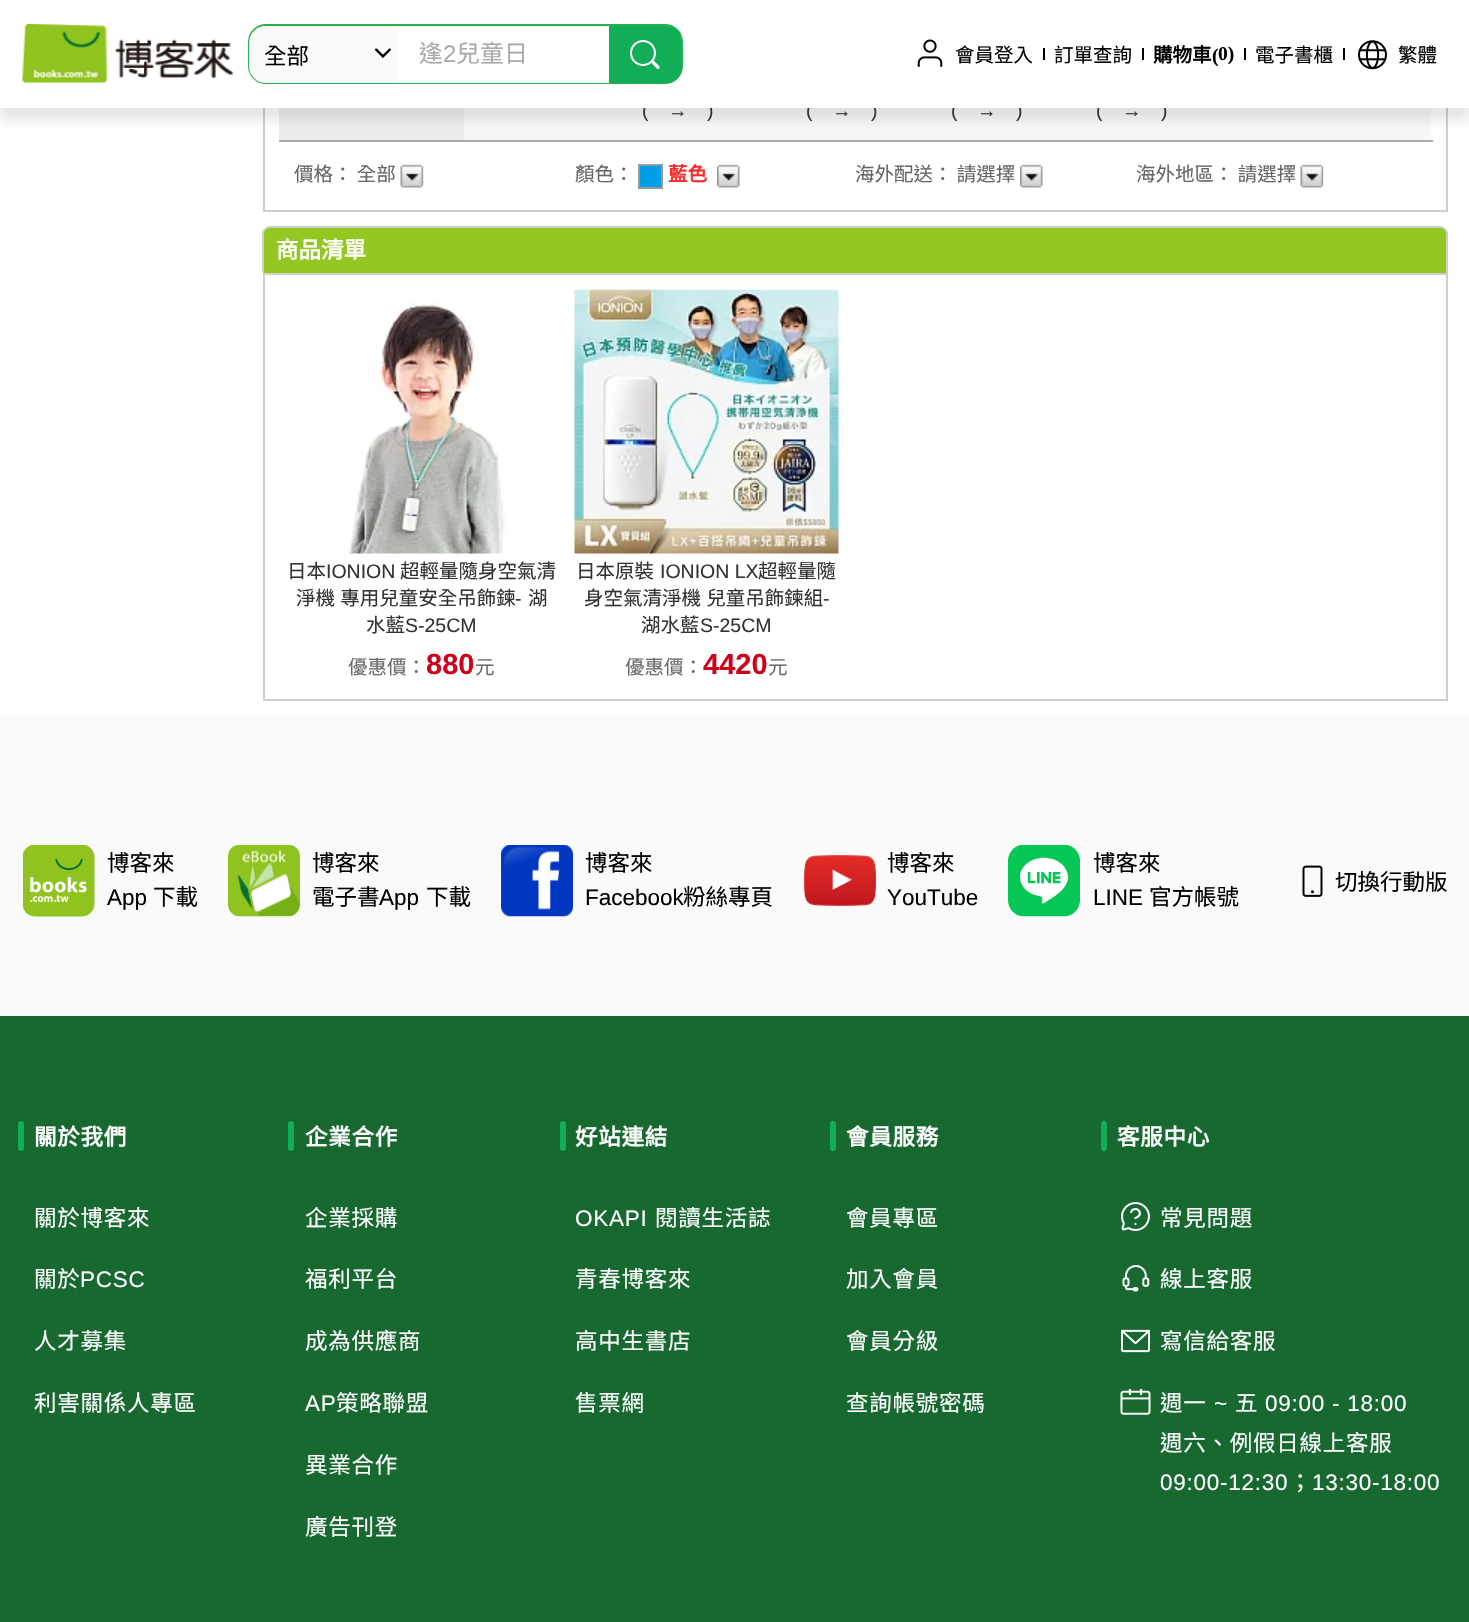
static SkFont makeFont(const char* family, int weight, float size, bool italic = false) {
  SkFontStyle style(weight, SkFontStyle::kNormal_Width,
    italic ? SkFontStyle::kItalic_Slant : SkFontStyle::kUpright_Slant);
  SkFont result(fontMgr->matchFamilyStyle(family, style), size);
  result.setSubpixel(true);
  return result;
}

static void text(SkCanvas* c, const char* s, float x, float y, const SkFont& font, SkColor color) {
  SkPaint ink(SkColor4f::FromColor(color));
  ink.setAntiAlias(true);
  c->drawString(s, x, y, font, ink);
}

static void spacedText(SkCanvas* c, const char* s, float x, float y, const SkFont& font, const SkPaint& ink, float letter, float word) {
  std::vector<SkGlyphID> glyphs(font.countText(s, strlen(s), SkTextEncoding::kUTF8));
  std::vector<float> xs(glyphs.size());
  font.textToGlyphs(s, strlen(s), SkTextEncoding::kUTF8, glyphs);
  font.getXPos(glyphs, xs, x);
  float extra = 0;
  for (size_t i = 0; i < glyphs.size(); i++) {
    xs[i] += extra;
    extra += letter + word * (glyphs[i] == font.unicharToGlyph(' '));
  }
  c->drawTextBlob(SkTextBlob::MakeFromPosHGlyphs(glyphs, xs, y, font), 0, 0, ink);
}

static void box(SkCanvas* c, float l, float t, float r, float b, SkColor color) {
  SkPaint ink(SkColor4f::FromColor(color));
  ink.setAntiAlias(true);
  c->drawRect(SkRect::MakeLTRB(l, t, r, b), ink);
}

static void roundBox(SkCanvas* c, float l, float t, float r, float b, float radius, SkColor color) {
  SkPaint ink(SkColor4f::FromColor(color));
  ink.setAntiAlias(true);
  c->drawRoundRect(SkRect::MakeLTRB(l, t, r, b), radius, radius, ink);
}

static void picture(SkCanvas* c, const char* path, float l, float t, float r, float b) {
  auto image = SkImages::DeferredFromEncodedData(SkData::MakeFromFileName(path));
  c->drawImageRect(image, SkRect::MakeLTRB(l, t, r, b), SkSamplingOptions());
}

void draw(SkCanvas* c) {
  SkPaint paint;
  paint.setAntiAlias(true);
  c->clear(0xffffffff);
  box(c, 1446, 108, 1448, 212, 0xffcfcfcf);
  box(c, 263, 210, 1448, 212, 0xffcfcfcf);
  box(c, 263, 108, 265, 212, 0xffcfcfcf);
  box(c, 279, 108, 464, 140, 0xffeeeeee);
  box(c, 464, 108, 1431, 140, 0xfff8f8f8);
  paint.setColor(0x1a000000);
  paint.setMaskFilter(SkMaskFilter::MakeBlur(kNormal_SkBlurStyle, 6));
  c->drawRect(SkRect::MakeLTRB(0, 12, 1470, 120), paint);
  paint.setMaskFilter(nullptr);
  SkFont face1 = makeFont("Liberation Sans", 400, 19.5f);
  text(c, "(", 642, 117, face1, 0xff333333);
  text(c, ")", 707, 117, face1, 0xff333333);
  text(c, "(", 806, 117, face1, 0xff333333);
  text(c, ")", 871, 117, face1, 0xff333333);
  text(c, "(", 951, 117, face1, 0xff333333);
  text(c, ")", 1016, 117, face1, 0xff333333);
  text(c, "(", 1096, 117, face1, 0xff333333);
  text(c, ")", 1161, 117, face1, 0xff333333);
  box(c, 0, 4, 1469, 108, 0xffffffff);
  picture(c, "img_01.png", 22, 24, 233, 83);
  paint.setStyle(SkPaint::kStroke_Style);
  paint.setStrokeWidth(2);
  paint.setColor(0xff27b24f);
  c->drawRoundRect(SkRect::MakeLTRB(249, 25, 682, 83), 17, 17, paint);
  paint.setStyle(SkPaint::kFill_Style);
  paint.setColor(0xfffafafa);
  c->drawPath(SkPathBuilder().moveTo(266, 26).lineTo(399, 26).lineTo(399, 83).lineTo(266, 83).cubicTo(256.5f, 83, 249, 75.5f, 249, 66).lineTo(249, 43).cubicTo(249, 33.5f, 256.5f, 26, 266, 26).close().detach(), paint);
  SkFont face2 = makeFont("Noto Sans CJK TC", 400, 22.5f);
  text(c, "全部", 264, 64, face2, 0xff000000);
  picture(c, "img_02.png", 375, 48, 391, 58);
  box(c, 399, 82, 609, 83, 0xffffffff);
  SkFont face3 = makeFont("Noto Sans CJK TC", 400, 24);
  text(c, "逢", 419, 62, face3, 0xffaaaaaa);
  SkFont face4 = makeFont("Liberation Sans", 400, 24);
  text(c, "2", 443, 62, face4, 0xffaaaaaa);
  text(c, "兒童日", 456, 62, face3, 0xffaaaaaa);
  paint.setColor(0xff12ae57);
  c->drawPath(SkPathBuilder().moveTo(609, 26).lineTo(667, 26).cubicTo(674.5f, 26, 681, 32.5f, 681, 40).lineTo(681, 69).cubicTo(681, 76.5f, 674.5f, 83, 667, 83).lineTo(609, 83).close().detach(), paint);
  picture(c, "img_03.png", 630, 40, 660, 69);
  picture(c, "img_04.png", 917, 39, 943, 67);
  SkFont face5 = makeFont("Noto Sans CJK TC", 400, 19.5f);
  text(c, "會員登入", 955, 62, face5, 0xff000000);
  box(c, 1043, 48, 1045, 60, 0xff000000);
  text(c, "訂單查詢", 1054, 62, face5, 0xff000000);
  box(c, 1142, 48, 1144, 60, 0xff000000);
  SkFont face6 = makeFont("Noto Sans CJK TC", 700, 19.5f);
  text(c, "購物車", 1153, 62, face6, 0xff000000);
  SkFont face7 = makeFont("Liberation Serif", 700, 19.5f);
  text(c, "(", 1212, 62, face7, 0xff000000);
  text(c, "0)", 1218, 60, face7, 0xff000000);
  box(c, 1244, 48, 1246, 60, 0xff000000);
  text(c, "電子書櫃", 1255, 62, face5, 0xff000000);
  box(c, 1343, 48, 1345, 60, 0xff000000);
  picture(c, "img_05.png", 1358, 40, 1387, 70);
  text(c, "繁體", 1398, 62, face5, 0xff000000);
  box(c, 279, 140, 1433, 142, 0xffaaaaaa);
  text(c, "→", 668, 117, face1, 0xff333333);
  text(c, "→", 832, 117, face1, 0xff333333);
  text(c, "→", 977, 117, face1, 0xff333333);
  text(c, "→", 1122, 117, face1, 0xff333333);
  text(c, "價格： 全部", 294, 181, face5, 0xff666666);
  picture(c, "img_06.png", 400, 164, 424, 188);
  text(c, "顏色：", 575, 181, face5, 0xff666666);
  paint.setColor(0xff00a0e9);
  c->drawRect(SkRect::MakeLTRB(639, 165, 662, 188), paint);
  paint.setStyle(SkPaint::kStroke_Style);
  paint.setColor(0xff999999);
  c->drawRect(SkRect::MakeLTRB(639, 165, 662, 188), paint);
  text(c, "藍色", 668, 181, face6, 0xfffe2828);
  picture(c, "img_07.png", 717, 164, 740, 188);
  text(c, "海外配送： 請選擇", 855, 181, face5, 0xff666666);
  picture(c, "img_08.png", 1020, 164, 1043, 188);
  text(c, "海外地區： 請選擇", 1136, 181, face5, 0xff666666);
  picture(c, "img_06.png", 1300, 164, 1324, 188);
  paint.setStyle(SkPaint::kFill_Style);
  paint.setColor(0xffcfcfcf);
  c->drawPath(SkPathBuilder(SkPathFillType::kEvenOdd).moveTo(270, 226).lineTo(1440, 226).cubicTo(1444, 226, 1448, 230, 1448, 234).lineTo(1448, 273).lineTo(262, 273).lineTo(262, 234).cubicTo(262, 230, 266, 226, 270, 226).close().moveTo(270, 228).lineTo(1440, 228).cubicTo(1443, 228, 1446, 231, 1446, 234).lineTo(1446, 273).lineTo(264, 273).lineTo(264, 234).cubicTo(264, 231, 267, 228, 270, 228).close().detach(), paint);
  paint.setColor(0xff94c722);
  c->drawPath(SkPathBuilder().moveTo(270, 228).lineTo(1440, 228).cubicTo(1443.5f, 228, 1446, 230.5f, 1446, 234).lineTo(1446, 273).lineTo(264, 273).lineTo(264, 234).cubicTo(264, 230.5f, 266.5f, 228, 270, 228).close().detach(), paint);
  SkFont face8 = makeFont("Noto Sans CJK TC", 700, 22.5f);
  text(c, "商品清單", 276, 258, face8, 0xffffffff);
  paint.setStyle(SkPaint::kStroke_Style);
  paint.setColor(0xffcfcfcf);
  c->drawRect(SkRect::MakeLTRB(264, 274, 1447, 700), paint);
  picture(c, "img_09.png", 349, 301, 506, 554);
  text(c, "日本", 287, 578, face5, 0xff333333);
  text(c, "IONION", 326, 578, face1, 0xff333333);
  text(c, "超輕量隨身空氣清", 400, 578, face5, 0xff333333);
  paint.setStyle(SkPaint::kFill_Style);
  paint.setColor(0xff333333);
  spacedText(c, "淨機 專用兒童安全吊飾鍊", 296, 605, face5, paint, 0, 1);
  text(c, "-", 515, 605, face1, 0xff333333);
  text(c, "湖", 528, 605, face5, 0xff333333);
  text(c, "水藍", 366, 632, face5, 0xff333333);
  text(c, "S-25CM", 405, 632, face1, 0xff333333);
  text(c, "優惠價：", 348, 674, face5, 0xff6c6c6c);
  SkFont face9 = makeFont("Liberation Sans", 700, 29);
  text(c, "880", 426, 674, face9, 0xffd0021b);
  text(c, "元", 475, 674, face5, 0xff6c6c6c);
  picture(c, "img_10.png", 574, 289, 839, 554);
  text(c, "日本原裝", 576, 578, face5, 0xff333333);
  text(c, "IONION LX", 660, 578, face1, 0xff333333);
  text(c, "超輕量隨", 758, 578, face5, 0xff333333);
  spacedText(c, "身空氣清淨機 兒童吊飾鍊組", 584, 605, face5, paint, 0, 1);
  text(c, "-", 823, 605, face1, 0xff333333);
  text(c, "湖水藍", 641, 632, face5, 0xff333333);
  text(c, "S-25CM", 700, 632, face1, 0xff333333);
  text(c, "優惠價：", 625, 674, face5, 0xff6c6c6c);
  text(c, "4420", 703, 674, face9, 0xffd0021b);
  text(c, "元", 768, 674, face5, 0xff6c6c6c);
  box(c, 0, 716, 1469, 1016, 0xfffafafa);
  picture(c, "img_11.png", 23, 845, 95, 917);
  text(c, "博客來", 107, 871, face2, 0xff000000);
  SkFont face10 = makeFont("Liberation Sans", 400, 22.5f);
  text(c, "App", 107, 905, face10, 0xff000000);
  text(c, "下載", 153, 905, face2, 0xff000000);
  picture(c, "img_12.png", 228, 845, 300, 917);
  text(c, "博客來", 312, 871, face2, 0xff000000);
  text(c, "電子書", 312, 905, face2, 0xff000000);
  text(c, "App", 379, 905, face10, 0xff000000);
  text(c, "下載", 426, 905, face2, 0xff000000);
  picture(c, "img_13.png", 501, 845, 573, 917);
  text(c, "博客來", 585, 871, face2, 0xff000000);
  text(c, "Facebook", 585, 905, face10, 0xff000000);
  text(c, "粉絲專頁", 683, 905, face2, 0xff000000);
  picture(c, "img_14.png", 804, 855, 876, 906);
  text(c, "博客來", 887, 871, face2, 0xff000000);
  text(c, "YouTube", 887, 905, face10, 0xff000000);
  picture(c, "img_15.png", 1008, 845, 1080, 917);
  text(c, "博客來", 1093, 871, face2, 0xff000000);
  text(c, "LINE", 1093, 905, face10, 0xff000000);
  text(c, "官方帳號", 1149, 905, face2, 0xff000000);
  picture(c, "img_16.png", 1302, 865, 1323, 897);
  text(c, "切換行動版", 1335, 890, face2, 0xff000000);
  box(c, 0, 1016, 1469, 1622, 0xff17692f);
  roundBox(c, 18, 1121, 24, 1151, 3, 0xff12ae57);
  paint.setColor(0xffffffff);
  spacedText(c, "關於我們", 34, 1145, face8, paint, 0.75f, 0);
  spacedText(c, "關於博客來", 34, 1226, face2, paint, 0.75f, 0);
  spacedText(c, "關於", 34, 1287, face2, paint, 0.75f, 0);
  spacedText(c, "PCSC", 80, 1287, face10, paint, 0.75f, 0);
  spacedText(c, "人才募集", 34, 1349, face2, paint, 0.75f, 0);
  spacedText(c, "利害關係人專區", 34, 1411, face2, paint, 0.75f, 0);
  roundBox(c, 288, 1121, 294, 1151, 3, 0xff12ae57);
  spacedText(c, "企業合作", 305, 1145, face8, paint, 0.75f, 0);
  spacedText(c, "企業採購", 305, 1226, face2, paint, 0.75f, 0);
  spacedText(c, "福利平台", 305, 1287, face2, paint, 0.75f, 0);
  spacedText(c, "成為供應商", 305, 1349, face2, paint, 0.75f, 0);
  spacedText(c, "AP", 305, 1411, face10, paint, 0.75f, 0);
  spacedText(c, "策略聯盟", 336, 1411, face2, paint, 0.75f, 0);
  spacedText(c, "異業合作", 305, 1473, face2, paint, 0.75f, 0);
  spacedText(c, "廣告刊登", 305, 1535, face2, paint, 0.75f, 0);
  roundBox(c, 560, 1121, 566, 1151, 3, 0xff12ae57);
  spacedText(c, "好站連結", 575, 1145, face8, paint, 0.75f, 0);
  spacedText(c, "OKAPI", 575, 1226, face10, paint, 0.75f, 0);
  spacedText(c, "閱讀生活誌", 655, 1226, face2, paint, 0.75f, 0);
  spacedText(c, "青春博客來", 575, 1287, face2, paint, 0.75f, 0);
  spacedText(c, "高中生書店", 575, 1349, face2, paint, 0.75f, 0);
  spacedText(c, "售票網", 575, 1411, face2, paint, 0.75f, 0);
  roundBox(c, 830, 1121, 836, 1151, 3, 0xff12ae57);
  spacedText(c, "會員服務", 846, 1145, face8, paint, 0.75f, 0);
  spacedText(c, "會員專區", 846, 1226, face2, paint, 0.75f, 0);
  spacedText(c, "加入會員", 846, 1287, face2, paint, 0.75f, 0);
  spacedText(c, "會員分級", 846, 1349, face2, paint, 0.75f, 0);
  spacedText(c, "查詢帳號密碼", 846, 1411, face2, paint, 0.75f, 0);
  roundBox(c, 1101, 1121, 1107, 1151, 3, 0xff12ae57);
  spacedText(c, "客服中心", 1117, 1145, face8, paint, 0.75f, 0);
  picture(c, "img_17.png", 1121, 1202, 1150, 1231);
  spacedText(c, "常見問題", 1160, 1226, face2, paint, 0.75f, 0);
  picture(c, "img_18.png", 1122, 1265, 1150, 1292);
  spacedText(c, "線上客服", 1160, 1287, face2, paint, 0.75f, 0);
  picture(c, "img_19.png", 1121, 1329, 1150, 1353);
  spacedText(c, "寫信給客服", 1160, 1349, face2, paint, 0.75f, 0);
  picture(c, "img_20.png", 1120, 1389, 1151, 1415);
  spacedText(c, "週一", 1160, 1411, face2, paint, 0.75f, 0);
  spacedText(c, "~", 1214, 1411, face10, paint, 0.75f, 0);
  spacedText(c, "五", 1235, 1411, face2, paint, 0.75f, 0);
  spacedText(c, "09:00 - 18:00", 1265, 1411, face10, paint, 0.75f, 0);
  spacedText(c, "週六、例假日線上客服", 1160, 1451, face2, paint, 0.75f, 0);
  spacedText(c, "09:00-12:30", 1160, 1490, face10, paint, 0.75f, 0);
  spacedText(c, "；", 1289, 1490, face2, paint, 0.75f, 0);
  spacedText(c, "13:30-18:00", 1312, 1490, face10, paint, 0.75f, 0);
}
